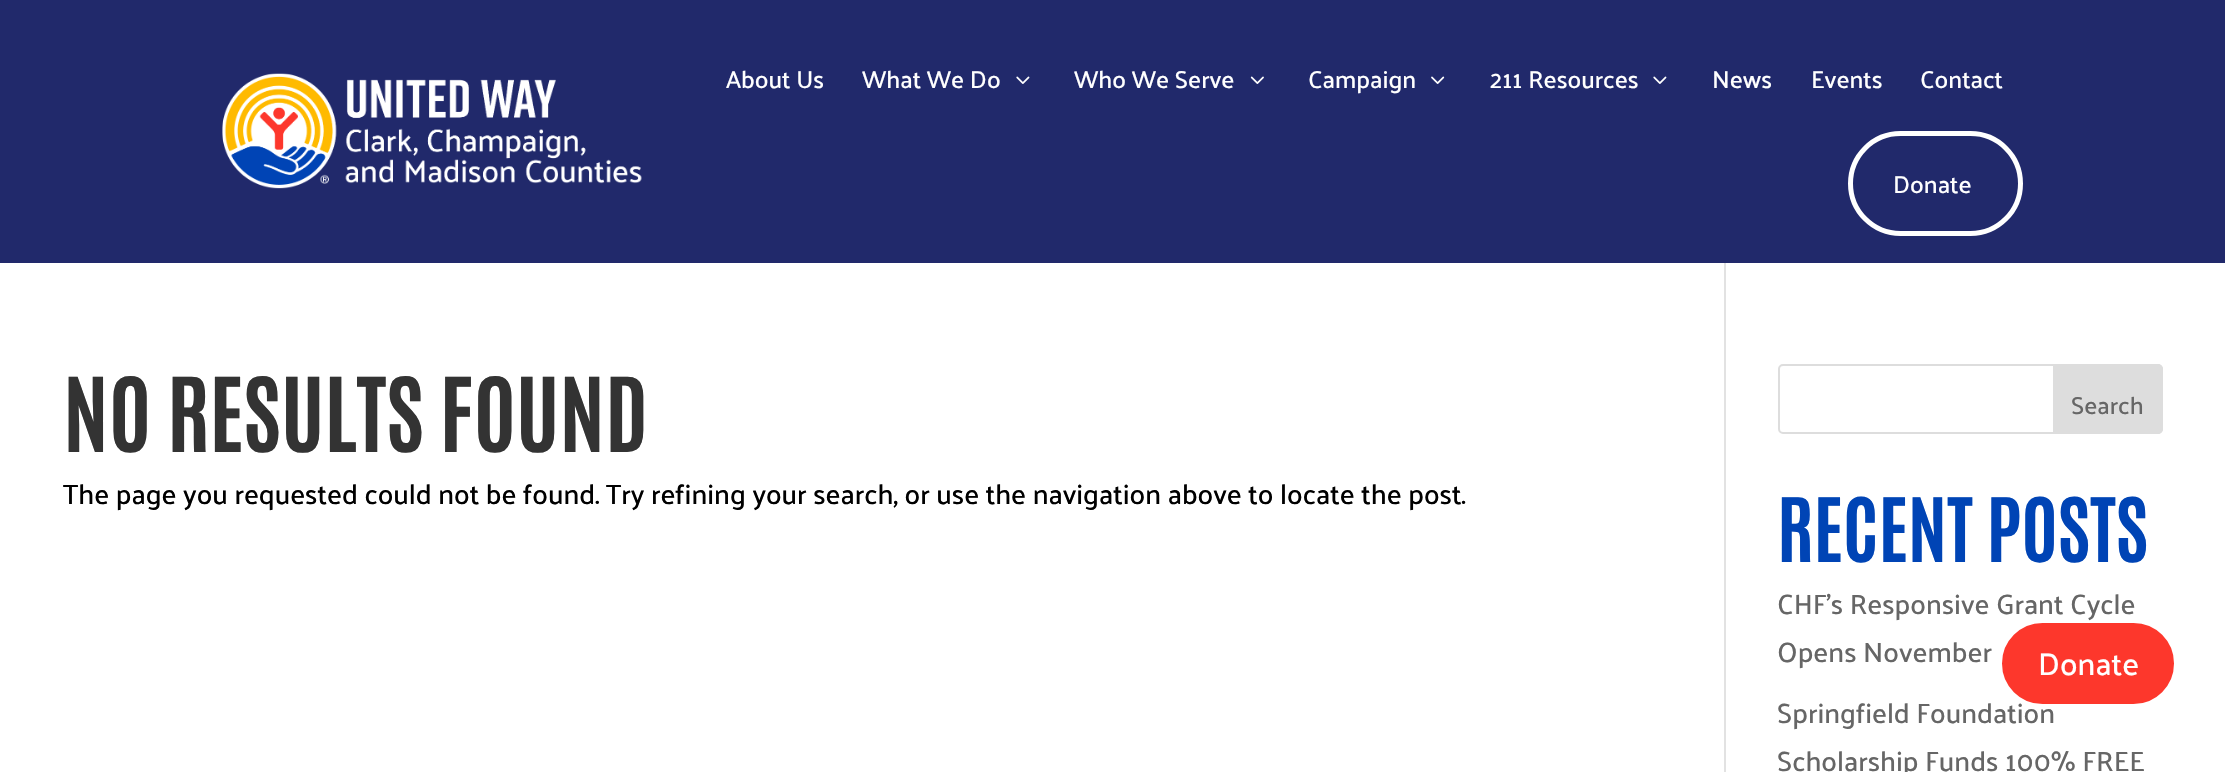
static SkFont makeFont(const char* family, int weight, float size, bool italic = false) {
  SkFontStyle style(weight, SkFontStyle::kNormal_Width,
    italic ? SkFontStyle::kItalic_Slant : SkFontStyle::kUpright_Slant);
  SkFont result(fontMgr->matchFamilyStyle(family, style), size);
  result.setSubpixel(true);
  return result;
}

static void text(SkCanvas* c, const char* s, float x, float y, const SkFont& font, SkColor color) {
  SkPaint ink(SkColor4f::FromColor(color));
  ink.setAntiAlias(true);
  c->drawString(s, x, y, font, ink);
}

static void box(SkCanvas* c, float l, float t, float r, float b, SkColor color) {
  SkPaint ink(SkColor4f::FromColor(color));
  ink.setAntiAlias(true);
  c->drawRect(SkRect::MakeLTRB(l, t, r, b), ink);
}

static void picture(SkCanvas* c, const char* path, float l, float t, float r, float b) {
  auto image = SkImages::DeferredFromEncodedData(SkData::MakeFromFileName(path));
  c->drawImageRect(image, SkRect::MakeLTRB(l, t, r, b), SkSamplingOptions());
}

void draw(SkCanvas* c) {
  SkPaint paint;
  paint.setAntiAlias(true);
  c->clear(0xffffffff);
  box(c, 0, 0, 2225, 263, 0xff21296b);
  picture(c, "img_01.png", 222, 73, 642, 189);
  SkFont face1 = makeFont("Palanquin", 500, 24.5f);
  text(c, "About Us", 726, 88, face1, 0xffffffff);
  text(c, "What We Do", 862, 88, face1, 0xffffffff);
  picture(c, "img_02.png", 1016, 76, 1030, 84);
  text(c, "Who We Serve", 1074, 88, face1, 0xffffffff);
  picture(c, "img_03.png", 1250, 76, 1264, 84);
  text(c, "Campaign", 1308, 88, face1, 0xffffffff);
  picture(c, "img_04.png", 1431, 76, 1445, 84);
  text(c, "211 Resources", 1490, 88, face1, 0xffffffff);
  picture(c, "img_02.png", 1653, 76, 1667, 84);
  text(c, "News", 1712, 88, face1, 0xffffffff);
  text(c, "Events", 1811, 88, face1, 0xffffffff);
  text(c, "Contact", 1920, 88, face1, 0xffffffff);
  paint.setStyle(SkPaint::kStroke_Style);
  paint.setStrokeWidth(5);
  paint.setColor(0xffffffff);
  c->drawRoundRect(SkRect::MakeLTRB(1850.5f, 133.5f, 2020.5f, 233.5f), 50, 50, paint);
  text(c, "Donate", 1893, 193, face1, 0xffffffff);
  box(c, 1724, 263, 1726, 772, 0xffe2e2e2);
  SkFont face2 = makeFont("Antonio", 700, 87.5f);
  text(c, "NO RESULTS FOUND", 63, 452, face2, 0xff333333);
  SkFont face3 = makeFont("Palanquin", 500, 28);
  text(c, "The page you requested could not be found. Try refining your search, or use the navigation above to locate the post.", 63, 504, face3, 0xff000000);
  paint.setStrokeWidth(2);
  paint.setColor(0xffdddddd);
  c->drawRoundRect(SkRect::MakeLTRB(1779, 365, 2162, 433), 4, 4, paint);
  paint.setStyle(SkPaint::kFill_Style);
  c->drawPath(SkPathBuilder().moveTo(2054, 365).lineTo(2158, 365).cubicTo(2160, 365, 2162, 367, 2162, 369).lineTo(2162, 429).cubicTo(2162, 431, 2160, 433, 2158, 433).lineTo(2054, 433).close().detach(), paint);
  paint.setStyle(SkPaint::kStroke_Style);
  c->drawPath(SkPathBuilder().moveTo(2054, 365).lineTo(2158, 365).cubicTo(2160, 365, 2162, 367, 2162, 369).lineTo(2162, 429).cubicTo(2162, 431, 2160, 433, 2158, 433).lineTo(2054, 433).close().detach(), paint);
  text(c, "Search", 2071, 414, face1, 0xff666666);
  SkFont face4 = makeFont("Antonio", 700, 75.25f);
  text(c, "RECENT POSTS", 1777, 562, face4, 0xff0044b5);
  text(c, "CHF’s Responsive Grant Cycle", 1777, 614, face3, 0xff666666);
  text(c, "Opens November", 1777, 662, face3, 0xff666666);
  text(c, "Springfield Foundation", 1777, 723, face3, 0xff666666);
  text(c, "Scholarship Funds 100% FREE", 1777, 771, face3, 0xff666666);
  paint.setStyle(SkPaint::kFill_Style);
  paint.setColor(0xfffd372c);
  c->drawRoundRect(SkRect::MakeLTRB(2004, 625, 2172, 702), 38.5f, 38.5f, paint);
  paint.setStyle(SkPaint::kStroke_Style);
  paint.setStrokeWidth(4);
  c->drawRoundRect(SkRect::MakeLTRB(2004, 625, 2172, 702), 38.5f, 38.5f, paint);
  SkFont face5 = makeFont("Palanquin", 500, 31.5f);
  text(c, "Donate", 2038, 675, face5, 0xffffffff);
}
